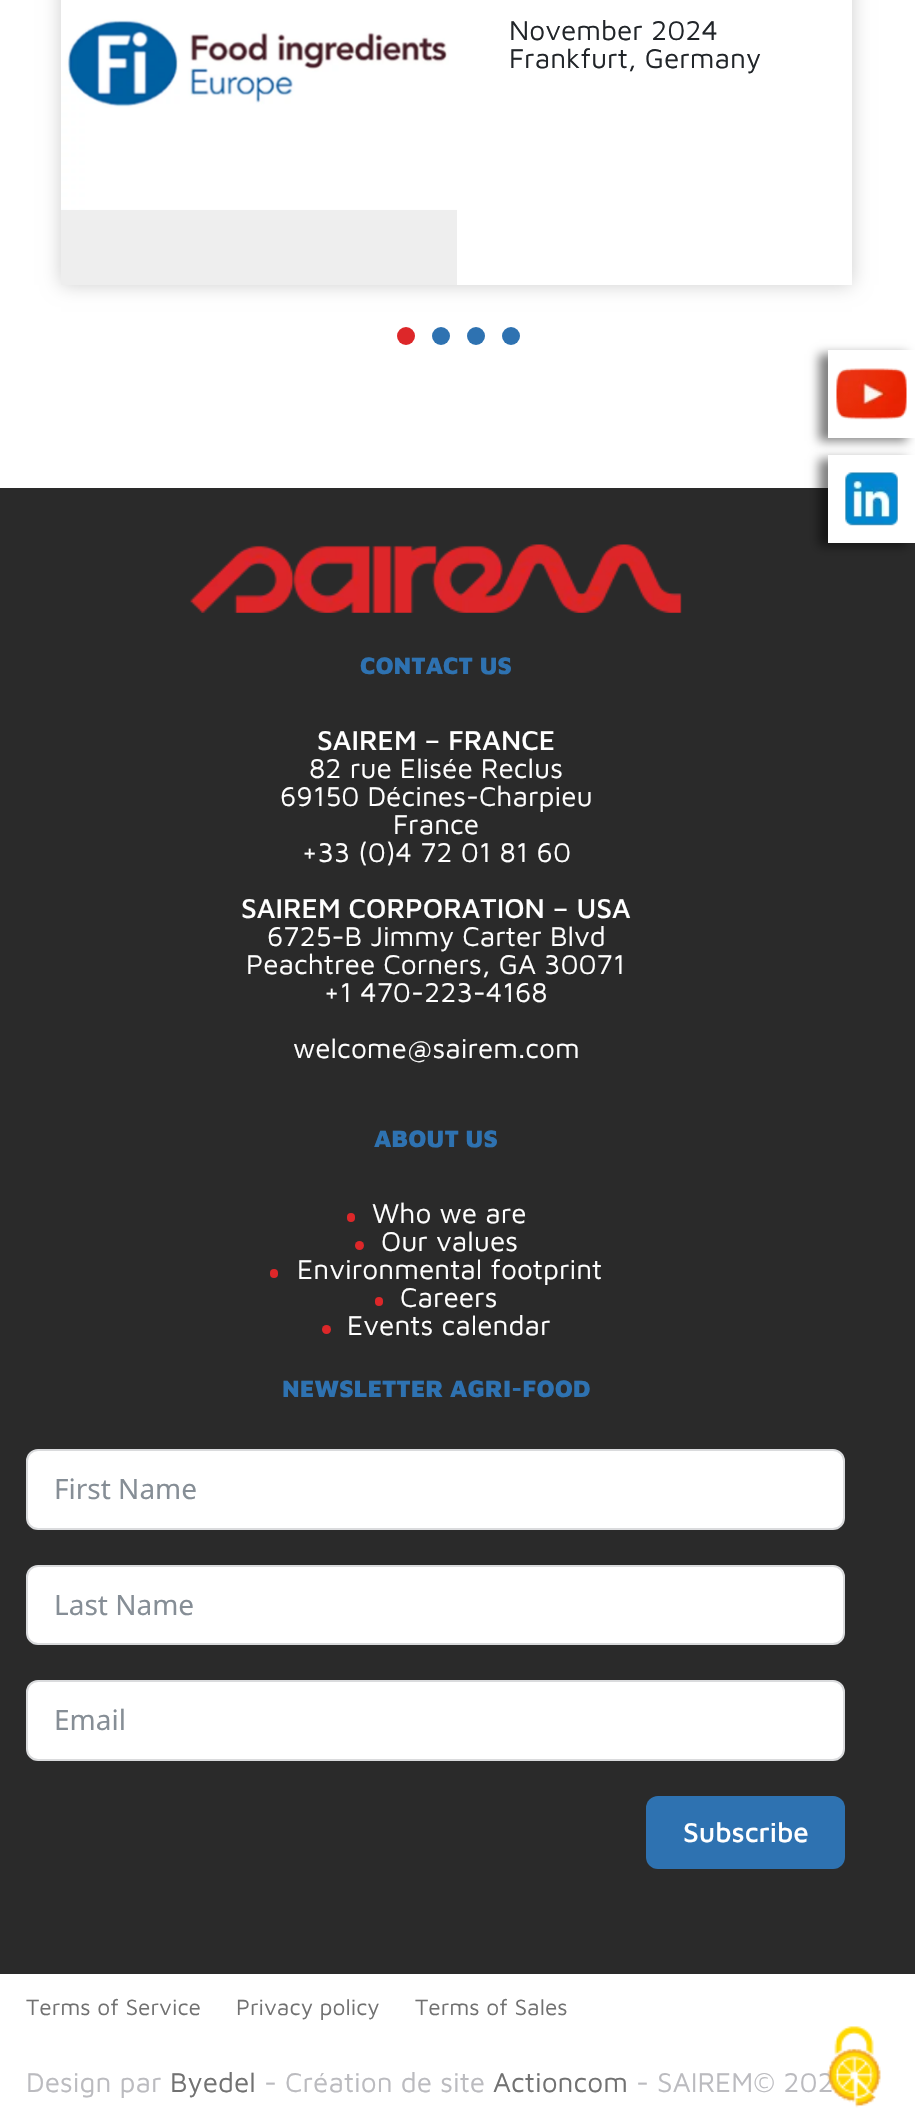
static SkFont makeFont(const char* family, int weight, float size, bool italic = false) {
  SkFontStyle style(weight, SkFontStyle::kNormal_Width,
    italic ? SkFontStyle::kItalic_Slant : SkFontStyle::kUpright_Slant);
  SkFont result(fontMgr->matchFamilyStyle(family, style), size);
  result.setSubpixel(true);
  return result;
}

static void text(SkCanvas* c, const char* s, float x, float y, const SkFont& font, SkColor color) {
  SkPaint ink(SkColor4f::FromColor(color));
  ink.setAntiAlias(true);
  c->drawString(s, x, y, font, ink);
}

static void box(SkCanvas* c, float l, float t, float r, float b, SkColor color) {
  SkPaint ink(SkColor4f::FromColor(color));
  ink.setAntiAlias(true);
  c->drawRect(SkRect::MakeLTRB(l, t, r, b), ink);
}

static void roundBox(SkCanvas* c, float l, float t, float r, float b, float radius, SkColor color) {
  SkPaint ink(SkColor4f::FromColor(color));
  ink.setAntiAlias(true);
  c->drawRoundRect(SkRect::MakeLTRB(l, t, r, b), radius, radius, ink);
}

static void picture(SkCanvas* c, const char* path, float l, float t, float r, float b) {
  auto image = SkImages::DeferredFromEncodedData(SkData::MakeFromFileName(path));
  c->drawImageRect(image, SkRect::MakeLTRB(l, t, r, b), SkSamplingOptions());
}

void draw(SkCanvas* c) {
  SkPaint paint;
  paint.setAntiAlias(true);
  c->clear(0xffffffff);
  c->save();
  c->clipPath(SkPathBuilder(SkPathFillType::kEvenOdd).moveTo(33, 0).lineTo(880, 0).lineTo(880, 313).lineTo(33, 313).close().moveTo(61, -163).lineTo(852, -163).lineTo(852, 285).lineTo(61, 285).close().detach(), true);
  paint.setColor(0xffcecece);
  paint.setMaskFilter(SkMaskFilter::MakeBlur(kNormal_SkBlurStyle, 9));
  c->drawRect(SkRect::MakeLTRB(61, -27, 852, 285), paint);
  paint.setMaskFilter(nullptr);
  c->restore();
  box(c, 61, 209, 457, 285, 0xffeeeeee);
  picture(c, "img_01.png", 61, 0, 457, 210);
  SkFont face1 = makeFont("Maven Pro", 400, 28);
  text(c, "November 2024", 509, 40, face1, 0xff212529);
  text(c, "Frankfurt, Germany", 509, 68, face1, 0xff212529);
  paint.setColor(0xffdd2729);
  c->drawCircle(406, 336, 9, paint);
  paint.setColor(0xff2e72b1);
  c->drawCircle(441, 336, 9, paint);
  c->drawCircle(476, 336, 9, paint);
  c->drawCircle(511, 336, 9, paint);
  box(c, 0, 488, 915, 1974, 0xff2a2a2a);
  picture(c, "img_02.png", 190, 544, 682, 613);
  SkFont face2 = makeFont("Maven Pro", 900, 24.4f);
  text(c, "CONTACT US", 360, 674, face2, 0xff2e72b1);
  SkFont face3 = makeFont("Maven Pro", 500, 28);
  text(c, "SAIREM – FRANCE", 317, 750, face3, 0xffffffff);
  text(c, "82 rue Elisée Reclus", 309, 778, face1, 0xffffffff);
  text(c, "69150 Décines-Charpieu", 280, 806, face1, 0xffffffff);
  text(c, "France", 393, 834, face1, 0xffffffff);
  text(c, "+33 (0)4 72 01 81 60", 302, 862, face1, 0xffffffff);
  text(c, "SAIREM CORPORATION – USA", 241, 918, face3, 0xffffffff);
  text(c, "6725-B Jimmy Carter Blvd", 267, 946, face1, 0xffffffff);
  text(c, "Peachtree Corners, GA 30071", 246, 974, face1, 0xffffffff);
  text(c, "+1 470-223-4168", 324, 1002, face1, 0xffffffff);
  text(c, "welcome@sairem.com", 293, 1058, face1, 0xffffffff);
  text(c, "ABOUT US", 374, 1147, face2, 0xff2e72b1);
  roundBox(c, 347, 1213, 355, 1222, 4, 0xffdd2729);
  text(c, "Who we are", 372, 1223, face1, 0xffffffff);
  paint.setColor(0xffdd2729);
  c->drawCircle(359.5f, 1245.5f, 4.5f, paint);
  text(c, "Our values", 381, 1251, face1, 0xffffffff);
  roundBox(c, 270, 1269, 278, 1278, 4, 0xffdd2729);
  text(c, "Environmental footprint", 297, 1279, face1, 0xffffffff);
  roundBox(c, 375, 1297, 383, 1306, 4, 0xffdd2729);
  text(c, "Careers", 400, 1307, face1, 0xffffffff);
  c->drawCircle(326.5f, 1329.5f, 4.5f, paint);
  text(c, "Events calendar", 347, 1335, face1, 0xffffffff);
  text(c, "NEWSLETTER AGRI-FOOD", 282, 1397, face2, 0xff2e72b1);
  paint.setColor(0xffffffff);
  c->drawRoundRect(SkRect::MakeLTRB(27, 1450, 844, 1529), 11, 11, paint);
  paint.setStyle(SkPaint::kStroke_Style);
  paint.setStrokeWidth(2);
  paint.setColor(0xffdadbdd);
  c->drawRoundRect(SkRect::MakeLTRB(27, 1450, 844, 1529), 11, 11, paint);
  SkFont face4 = makeFont("Noto Sans", 400, 28);
  text(c, "First Name", 54, 1499, face4, 0xff868e96);
  paint.setStyle(SkPaint::kFill_Style);
  paint.setColor(0xffffffff);
  c->drawRoundRect(SkRect::MakeLTRB(27, 1566, 844, 1644), 11, 11, paint);
  paint.setStyle(SkPaint::kStroke_Style);
  paint.setColor(0xffdadbdd);
  c->drawRoundRect(SkRect::MakeLTRB(27, 1566, 844, 1644), 11, 11, paint);
  text(c, "Last Name", 54, 1615, face4, 0xff868e96);
  paint.setStyle(SkPaint::kFill_Style);
  paint.setColor(0xffffffff);
  c->drawRoundRect(SkRect::MakeLTRB(27, 1681, 844, 1760), 11, 11, paint);
  paint.setStyle(SkPaint::kStroke_Style);
  paint.setColor(0xffdadbdd);
  c->drawRoundRect(SkRect::MakeLTRB(27, 1681, 844, 1760), 11, 11, paint);
  text(c, "Email", 54, 1730, face4, 0xff868e96);
  roundBox(c, 646, 1796, 845, 1869, 12, 0xff2e72b1);
  text(c, "Subscribe", 683, 1842, face3, 0xffffffff);
  paint.setStyle(SkPaint::kFill_Style);
  paint.setColor(0x80000000);
  paint.setMaskFilter(SkMaskFilter::MakeBlur(kNormal_SkBlurStyle, 5));
  c->drawRect(SkRect::MakeLTRB(819, 354, 907, 441), paint);
  paint.setMaskFilter(nullptr);
  box(c, 828, 350, 915, 438, 0xffffffff);
  picture(c, "img_03.png", 836, 368, 907, 420);
  paint.setMaskFilter(SkMaskFilter::MakeBlur(kNormal_SkBlurStyle, 5));
  c->drawRect(SkRect::MakeLTRB(819, 459, 907, 546), paint);
  paint.setMaskFilter(nullptr);
  box(c, 828, 455, 915, 543, 0xffffffff);
  picture(c, "img_04.png", 845, 472, 898, 526);
  SkFont face5 = makeFont("Maven Pro", 400, 22.75f);
  text(c, "Terms of Service", 26, 2015, face5, 0xff717171);
  text(c, "Privacy policy", 236, 2015, face5, 0xff717171);
  text(c, "Terms of Sales", 415, 2015, face5, 0xff717171);
  text(c, "Design par", 26, 2092, face1, 0xffbbbbbf);
  text(c, "Byedel", 170, 2092, face1, 0xff717171);
  text(c, "- Création de site", 264, 2092, face1, 0xffbbbbbf);
  text(c, "Actioncom", 493, 2092, face1, 0xff717171);
  text(c, "- SAIREM© 202", 636, 2092, face1, 0xffbbbbbf);
  picture(c, "img_05.png", 827, 2026, 881, 2108);
}
